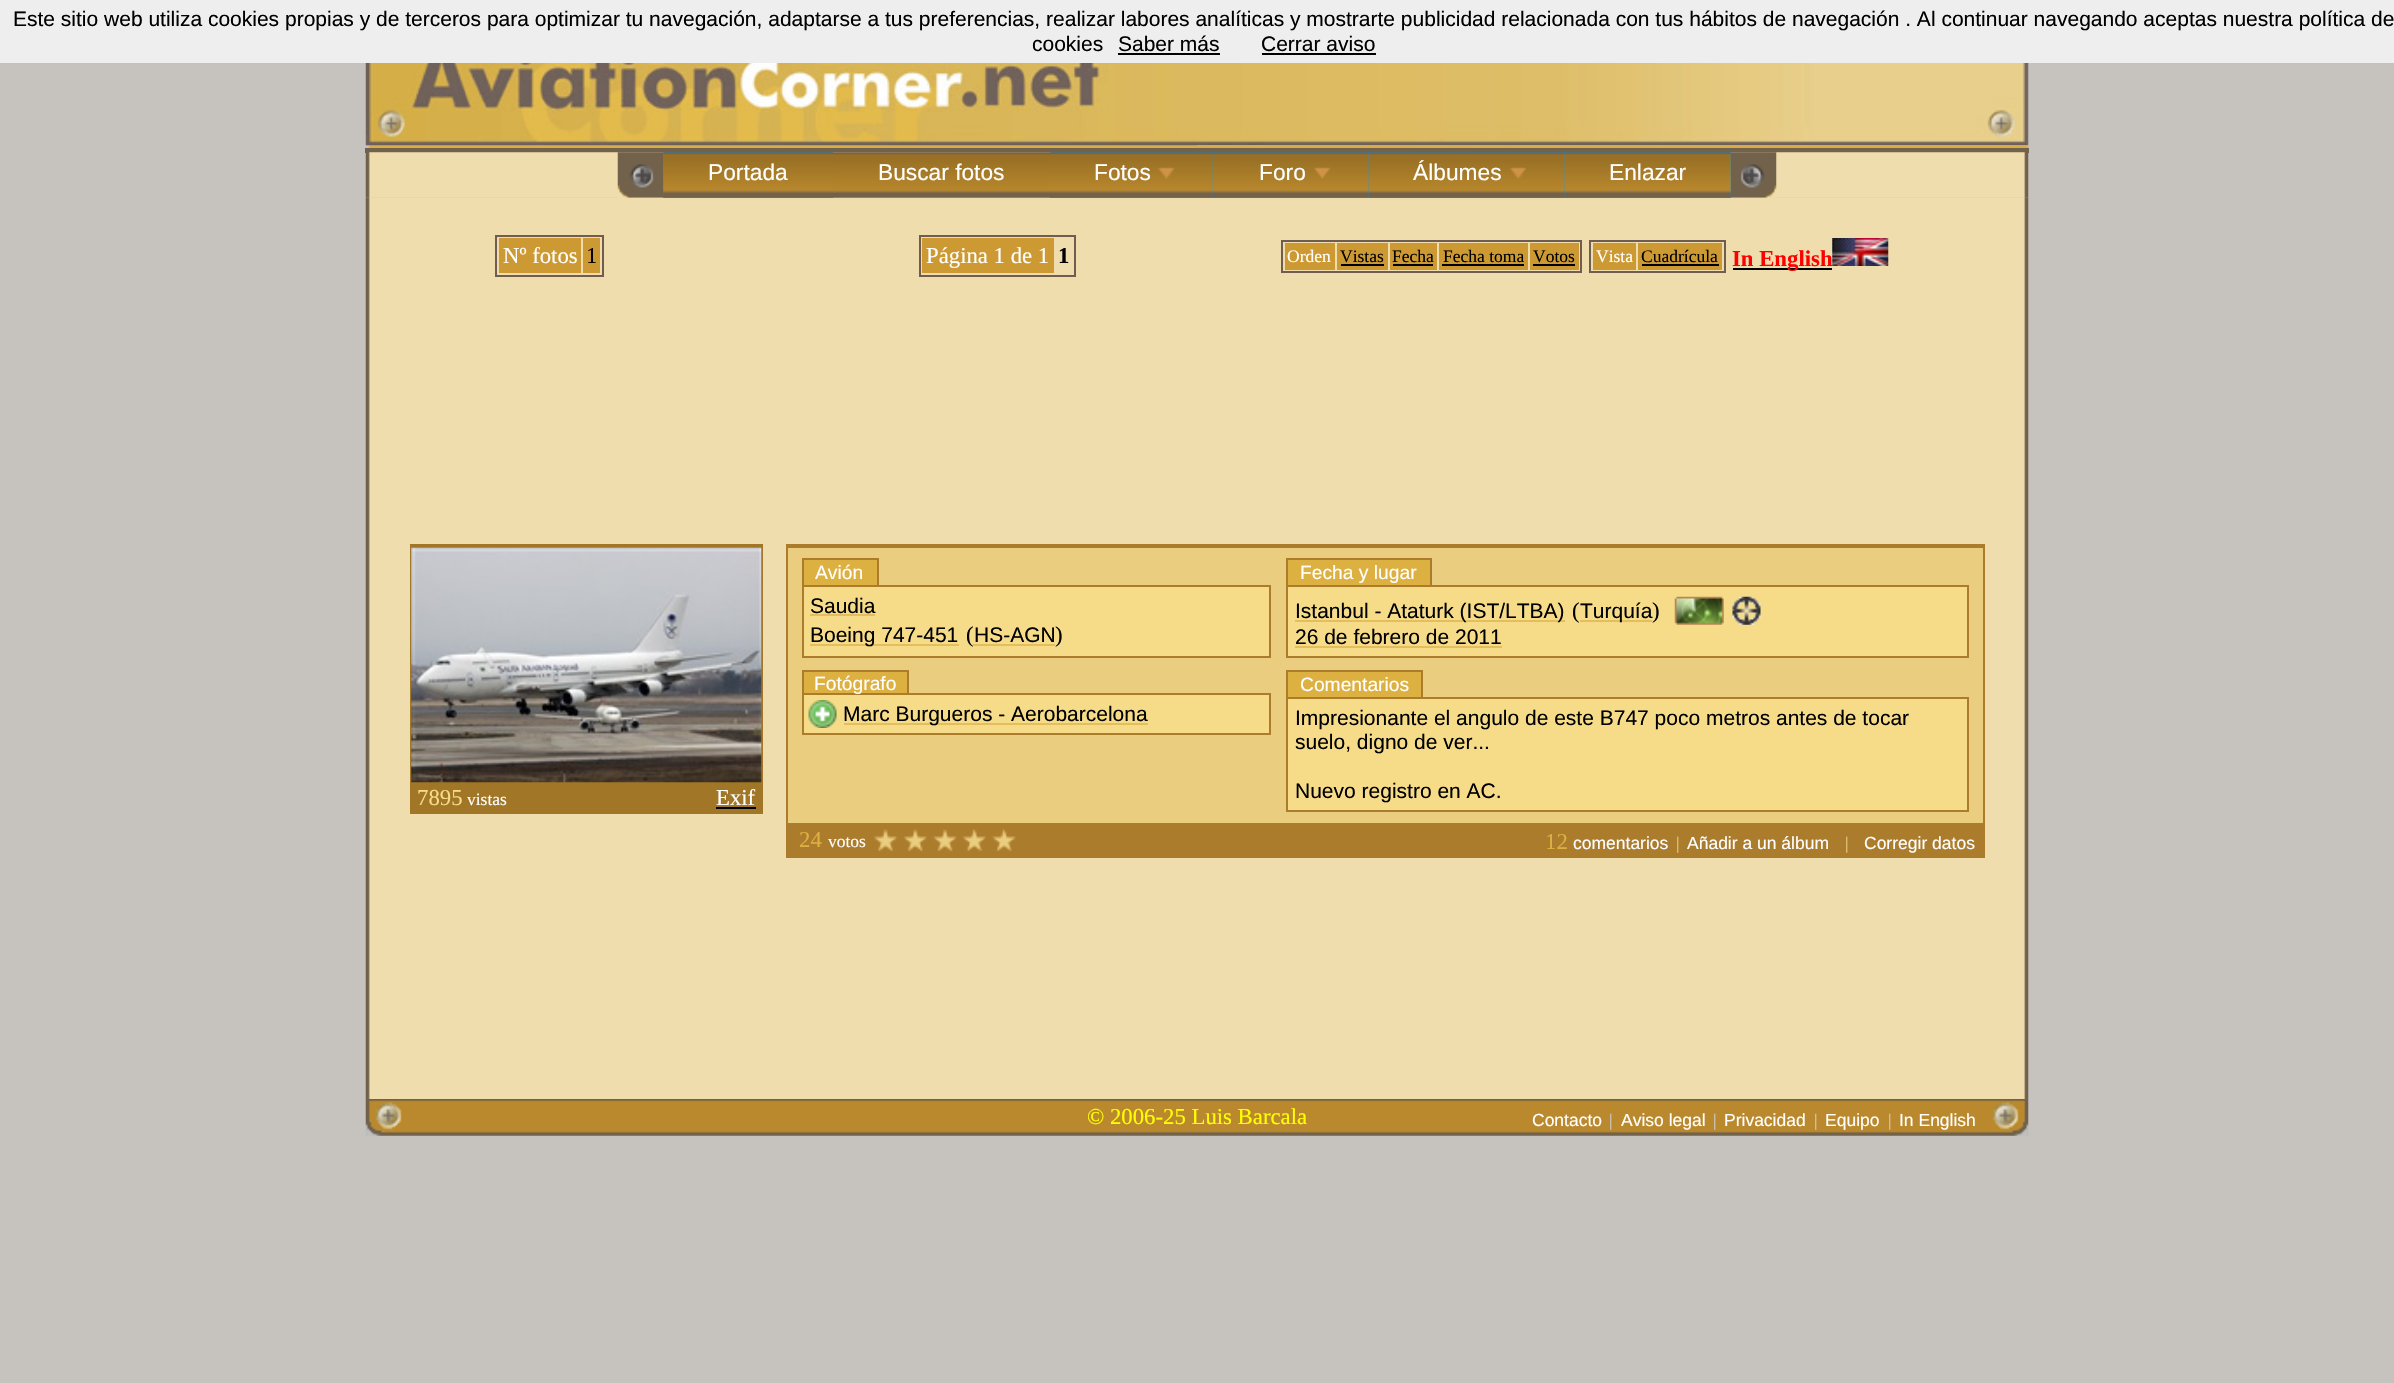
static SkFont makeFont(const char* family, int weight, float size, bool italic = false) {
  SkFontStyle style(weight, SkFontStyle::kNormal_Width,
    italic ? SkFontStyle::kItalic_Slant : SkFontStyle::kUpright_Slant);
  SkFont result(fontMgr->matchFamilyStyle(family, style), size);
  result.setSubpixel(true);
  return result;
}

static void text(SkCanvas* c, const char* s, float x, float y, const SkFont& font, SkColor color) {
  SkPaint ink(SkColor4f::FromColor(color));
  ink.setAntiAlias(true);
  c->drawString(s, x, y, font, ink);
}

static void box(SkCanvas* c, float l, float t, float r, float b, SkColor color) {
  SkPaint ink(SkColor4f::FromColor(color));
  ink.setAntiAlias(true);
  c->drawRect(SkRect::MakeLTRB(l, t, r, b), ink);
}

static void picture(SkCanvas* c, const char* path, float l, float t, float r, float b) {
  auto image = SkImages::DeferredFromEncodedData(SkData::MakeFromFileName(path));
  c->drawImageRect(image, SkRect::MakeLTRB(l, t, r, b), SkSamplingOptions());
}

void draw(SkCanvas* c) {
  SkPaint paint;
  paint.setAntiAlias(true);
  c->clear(0xffc6c2be);
  box(c, 0, 0, 2394, 63, 0xffeeeeee);
  SkFont face1 = makeFont("Liberation Sans", 400, 21);
  text(c, "Este sitio web utiliza cookies propias y de terceros para optimizar tu navegación, adaptarse a tus preferencias, realizar labores analíticas y mostrarte publicidad relacionada con tus hábitos de navegación . Al continuar navegando aceptas nuestra política de", 13, 26, face1, 0xff000000);
  text(c, "cookies", 1032, 51, face1, 0xff000000);
  text(c, "Saber más", 1118, 51, face1, 0xff000000);
  box(c, 1118, 53, 1220, 55, 0xff000000);
  text(c, "Cerrar aviso", 1261, 51, face1, 0xff000000);
  box(c, 1262, 53, 1376, 55, 0xff000000);
  picture(c, "img_02.png", 1197, 63, 2029, 146);
  picture(c, "img_03.png", 366, 145, 2029, 148);
  picture(c, "img_01.png", 365, 63, 1197, 146);
  box(c, 365, 148, 2029, 153, 0xff72614b);
  picture(c, "img_04.png", 365, 152, 2029, 198);
  picture(c, "img_05.png", 617, 152, 663, 198);
  picture(c, "img_15.png", 1731, 152, 1777, 198);
  picture(c, "img_16.png", 365, 197, 2029, 1099);
  box(c, 663, 152, 833, 198, 0xff0099ff);
  picture(c, "img_06.png", 663, 152, 833, 198);
  SkFont face2 = makeFont("Liberation Sans", 400, 22.75f);
  text(c, "Portada", 708, 180, face2, 0xffffffff);
  picture(c, "img_07.png", 833, 152, 1050, 198);
  text(c, "Buscar fotos", 878, 180, face2, 0xffffffff);
  box(c, 1050, 152, 1731, 198, 0xff0099ff);
  picture(c, "img_08.png", 1050, 152, 1213, 198);
  text(c, "Fotos", 1094, 180, face2, 0xffffffff);
  picture(c, "img_09.png", 1158, 167, 1175, 179);
  picture(c, "img_10.png", 1212, 152, 1369, 198);
  text(c, "Foro", 1259, 180, face2, 0xffffffff);
  picture(c, "img_11.png", 1314, 167, 1330, 179);
  picture(c, "img_12.png", 1368, 152, 1565, 198);
  text(c, "Álbumes", 1413, 180, face2, 0xffffffff);
  picture(c, "img_13.png", 1510, 167, 1526, 179);
  picture(c, "img_14.png", 1564, 152, 1731, 198);
  text(c, "Enlazar", 1609, 180, face2, 0xffffffff);
  paint.setStyle(SkPaint::kStroke_Style);
  paint.setStrokeWidth(2);
  paint.setColor(0xff715d4f);
  c->drawRect(SkRect::MakeLTRB(496, 236, 603, 276), paint);
  box(c, 499, 238, 581, 273, 0xffcc9933);
  SkFont face3 = makeFont("Liberation Serif", 400, 22.75f);
  text(c, "Nº fotos", 503, 263, face3, 0xffffffff);
  box(c, 583, 238, 600, 273, 0xffcc9933);
  text(c, "1", 586, 263, face3, 0xff000000);
  c->drawRect(SkRect::MakeLTRB(920, 236, 1075, 276), paint);
  box(c, 922, 238, 1054, 273, 0xffcc9933);
  text(c, "Página 1 de 1", 926, 263, face3, 0xffffffff);
  SkFont face4 = makeFont("Liberation Serif", 700, 22.75f);
  text(c, "1", 1058, 263, face4, 0xff000000);
  c->drawRect(SkRect::MakeLTRB(1282, 241, 1581, 272), paint);
  box(c, 1285, 243, 1335, 270, 0xffcc9933);
  SkFont face5 = makeFont("Liberation Serif", 400, 17.5f);
  text(c, "Orden", 1287, 262, face5, 0xffffffff);
  box(c, 1337, 243, 1388, 270, 0xffcc9933);
  text(c, "Vistas", 1340, 262, face5, 0xff000000);
  box(c, 1341, 264, 1384, 266, 0xff000000);
  box(c, 1390, 243, 1437, 270, 0xffcc9933);
  text(c, "Fecha", 1392, 262, face5, 0xff000000);
  box(c, 1393, 264, 1433, 266, 0xff000000);
  box(c, 1439, 243, 1528, 270, 0xffcc9933);
  text(c, "Fecha toma", 1443, 262, face5, 0xff000000);
  box(c, 1442, 264, 1524, 266, 0xff000000);
  box(c, 1530, 243, 1579, 270, 0xffcc9933);
  text(c, "Votos", 1533, 262, face5, 0xff000000);
  box(c, 1533, 264, 1575, 266, 0xff000000);
  c->drawRect(SkRect::MakeLTRB(1590, 241, 1725, 272), paint);
  box(c, 1593, 243, 1636, 270, 0xffcc9933);
  text(c, "Vista", 1596, 262, face5, 0xffffffff);
  box(c, 1638, 243, 1722, 270, 0xffcc9933);
  text(c, "Cuadrícula", 1641, 262, face5, 0xff000000);
  box(c, 1642, 264, 1719, 266, 0xff000000);
  box(c, 1733, 268, 1832, 270, 0xff000000);
  text(c, "In English", 1732, 266, face4, 0xffff0000);
  picture(c, "img_17.png", 1832, 238, 1889, 266);
  box(c, 410, 544, 763, 548, 0xffa17627);
  box(c, 761, 544, 763, 782, 0xffa17627);
  box(c, 410, 544, 412, 782, 0xffa17627);
  box(c, 410, 782, 763, 814, 0xffa17627);
  picture(c, "img_18.png", 411, 547, 762, 783);
  text(c, "7895", 417, 805, face3, 0xfff6dc89);
  text(c, "vistas", 467, 805, face5, 0xffffffff);
  text(c, "Exif", 716, 805, face3, 0xffffffff);
  box(c, 716, 807, 756, 809, 0xff000000);
  box(c, 786, 544, 1985, 546, 0xffac7c2d);
  box(c, 788, 546, 1985, 548, 0xffac7c2d);
  box(c, 1983, 544, 1985, 858, 0xffac7c2d);
  box(c, 786, 856, 1985, 858, 0xffac7c2d);
  box(c, 786, 544, 788, 858, 0xffac7c2d);
  box(c, 788, 548, 1983, 823, 0xffeacd7f);
  box(c, 804, 560, 877, 585, 0xffddb042);
  box(c, 802, 558, 879, 560, 0xffac7c2d);
  box(c, 802, 585, 1271, 587, 0xffac7c2d);
  box(c, 877, 558, 879, 586, 0xffac7c2d);
  box(c, 1269, 585, 1271, 658, 0xffac7c2d);
  box(c, 802, 656, 1271, 658, 0xffac7c2d);
  box(c, 802, 585, 804, 658, 0xffac7c2d);
  box(c, 802, 558, 804, 586, 0xffac7c2d);
  SkFont face6 = makeFont("Liberation Sans", 400, 19.25f);
  text(c, "Avión", 815, 579, face6, 0xffffffff);
  box(c, 804, 587, 1269, 656, 0xfff6dc89);
  text(c, "Saudia", 810, 613, face1, 0xff000000);
  box(c, 810, 614, 875, 616, 0xffe3be5b);
  box(c, 810, 644, 959, 646, 0xffe3be5b);
  text(c, "Boeing 747-451", 810, 642, face1, 0xff000000);
  text(c, "(", 966, 642, face3, 0xff000000);
  text(c, "HS-AGN", 974, 642, face1, 0xff000000);
  box(c, 973, 644, 1055, 646, 0xffe3be5b);
  text(c, ")", 1055, 642, face3, 0xff000000);
  box(c, 1288, 560, 1430, 585, 0xffddb042);
  box(c, 1286, 558, 1432, 560, 0xffac7c2d);
  box(c, 1286, 585, 1969, 587, 0xffac7c2d);
  box(c, 1430, 558, 1432, 586, 0xffac7c2d);
  box(c, 1967, 585, 1969, 658, 0xffac7c2d);
  box(c, 1286, 656, 1969, 658, 0xffac7c2d);
  box(c, 1286, 585, 1288, 658, 0xffac7c2d);
  box(c, 1286, 558, 1288, 586, 0xffac7c2d);
  text(c, "Fecha y lugar", 1300, 579, face6, 0xffffffff);
  box(c, 1288, 587, 1967, 656, 0xfff6dc89);
  box(c, 1295, 620, 1565, 622, 0xffe3be5b);
  text(c, "Istanbul - Ataturk (IST/LTBA)", 1295, 618, face1, 0xff000000);
  text(c, "(", 1572, 618, face3, 0xff000000);
  box(c, 1580, 620, 1652, 622, 0xffe3be5b);
  text(c, "Turquía", 1580, 618, face1, 0xff000000);
  text(c, ")", 1652, 618, face3, 0xff000000);
  picture(c, "img_19.png", 1674, 596, 1724, 625);
  picture(c, "img_20.png", 1732, 596, 1761, 625);
  text(c, "26 de febrero de 2011", 1295, 644, face1, 0xff000000);
  box(c, 1295, 646, 1502, 648, 0xffe3be5b);
  box(c, 804, 672, 907, 693, 0xffddb042);
  box(c, 802, 670, 908, 672, 0xffac7c2d);
  box(c, 802, 693, 1271, 695, 0xffac7c2d);
  box(c, 907, 670, 909, 695, 0xffac7c2d);
  box(c, 1269, 693, 1271, 735, 0xffac7c2d);
  box(c, 802, 733, 1271, 735, 0xffac7c2d);
  box(c, 802, 693, 804, 735, 0xffac7c2d);
  box(c, 802, 670, 804, 695, 0xffac7c2d);
  text(c, "Fotógrafo", 814, 690, face6, 0xffffffff);
  box(c, 804, 695, 1269, 733, 0xfff6dc89);
  picture(c, "img_21.png", 808, 700, 837, 728);
  box(c, 844, 723, 1148, 725, 0xffe3be5b);
  text(c, "Marc Burgueros - Aerobarcelona", 843, 721, face1, 0xff000000);
  box(c, 1288, 672, 1421, 697, 0xffddb042);
  box(c, 1286, 670, 1423, 672, 0xffac7c2d);
  box(c, 1286, 697, 1969, 699, 0xffac7c2d);
  box(c, 1421, 670, 1423, 698, 0xffac7c2d);
  box(c, 1967, 697, 1969, 812, 0xffac7c2d);
  box(c, 1286, 810, 1969, 812, 0xffac7c2d);
  box(c, 1286, 697, 1288, 812, 0xffac7c2d);
  box(c, 1286, 670, 1288, 698, 0xffac7c2d);
  text(c, "Comentarios", 1300, 691, face6, 0xffffffff);
  box(c, 1288, 699, 1967, 810, 0xfff6dc89);
  text(c, "Impresionante el angulo de este B747 poco metros antes de tocar", 1295, 725, face1, 0xff000000);
  text(c, "suelo, digno de ver...", 1295, 749, face1, 0xff000000);
  text(c, "Nuevo registro en AC.", 1295, 798, face1, 0xff000000);
  box(c, 788, 825, 1983, 856, 0xffac7c2d);
  box(c, 786, 823, 1985, 825, 0xffac7c2d);
  text(c, "24", 799, 847, face3, 0xffddb042);
  text(c, "votos", 828, 847, face5, 0xffffffff);
  picture(c, "img_22.png", 874, 829, 1016, 852);
  text(c, "12", 1545, 849, face3, 0xffddb042);
  SkFont face7 = makeFont("Liberation Sans", 400, 17.5f);
  text(c, "comentarios", 1573, 849, face7, 0xffffffff);
  text(c, "|", 1676, 849, face5, 0xffeacd7f);
  text(c, "Añadir a un álbum", 1687, 849, face7, 0xffffffff);
  text(c, "|", 1845, 849, face5, 0xffeacd7f);
  text(c, "Corregir datos", 1864, 849, face7, 0xffffffff);
  picture(c, "img_23.png", 365, 1099, 2029, 1136);
  text(c, "© 2006-25 Luis Barcala", 1087, 1124, face3, 0xffffff00);
  text(c, "Contacto", 1532, 1126, face7, 0xffffffff);
  text(c, "|", 1609, 1126, face5, 0xffcccccc);
  text(c, "Aviso legal", 1621, 1126, face7, 0xffffffff);
  text(c, "|", 1713, 1126, face5, 0xffcccccc);
  text(c, "Privacidad", 1724, 1126, face7, 0xffffffff);
  text(c, "|", 1814, 1126, face5, 0xffcccccc);
  text(c, "Equipo", 1825, 1126, face7, 0xffffffff);
  text(c, "|", 1888, 1126, face5, 0xffcccccc);
  text(c, "In English", 1899, 1126, face7, 0xffffffff);
}
